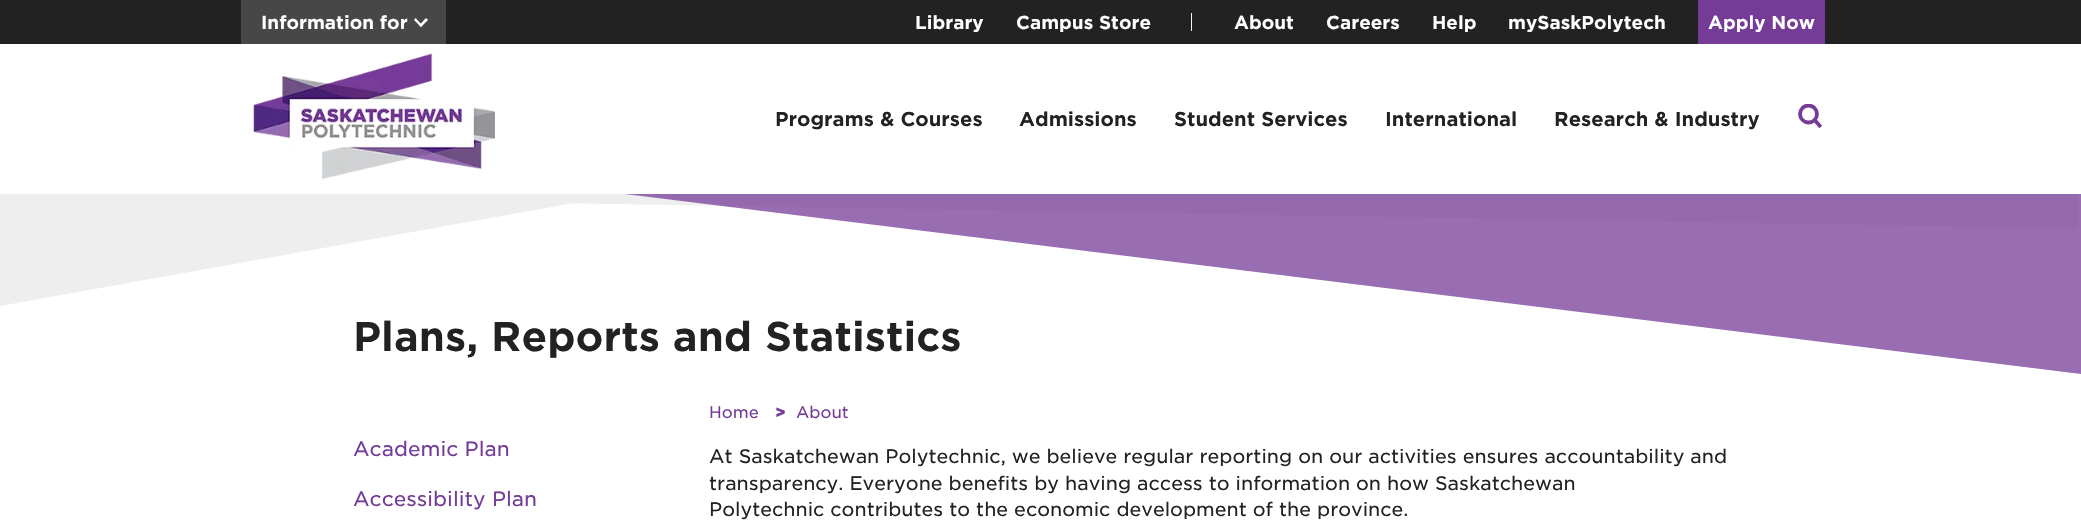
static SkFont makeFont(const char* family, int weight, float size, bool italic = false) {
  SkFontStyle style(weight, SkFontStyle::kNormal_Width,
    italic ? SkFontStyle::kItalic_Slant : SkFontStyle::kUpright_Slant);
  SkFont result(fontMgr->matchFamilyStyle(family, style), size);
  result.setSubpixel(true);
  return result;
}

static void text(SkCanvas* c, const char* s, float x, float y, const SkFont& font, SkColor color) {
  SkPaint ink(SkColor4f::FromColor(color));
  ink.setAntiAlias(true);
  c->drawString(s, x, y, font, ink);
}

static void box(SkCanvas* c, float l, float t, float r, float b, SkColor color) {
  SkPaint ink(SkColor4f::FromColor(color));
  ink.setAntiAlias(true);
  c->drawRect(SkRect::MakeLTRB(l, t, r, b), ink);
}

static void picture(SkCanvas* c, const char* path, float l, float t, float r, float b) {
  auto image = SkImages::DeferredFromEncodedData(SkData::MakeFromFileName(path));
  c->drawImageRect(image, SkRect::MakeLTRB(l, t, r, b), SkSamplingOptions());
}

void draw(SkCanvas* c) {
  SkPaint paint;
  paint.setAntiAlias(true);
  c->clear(0xffffffff);
  box(c, 0, 0, 2081, 44, 0xff222222);
  box(c, 241, 0, 446, 44, 0xff474747);
  SkFont face1 = makeFont("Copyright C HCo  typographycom", 400, 18);
  text(c, "Information for", 261, 29, face1, 0xffffffff);
  paint.setColor(0xffffffff);
  c->drawPath(SkPathBuilder().moveTo(419, 25.5f).lineTo(426, 18).lineTo(428, 20).lineTo(421, 27).close().detach(), paint);
  c->drawPath(SkPathBuilder().moveTo(414, 20).lineTo(415.5f, 18).lineTo(422.5f, 25.5f).lineTo(421, 27).close().detach(), paint);
  text(c, "Library", 915, 29, face1, 0xffffffff);
  text(c, "Campus Store", 1016, 29, face1, 0xffffffff);
  box(c, 1191, 13, 1192, 31, 0xfff5f5f5);
  text(c, "About", 1234, 29, face1, 0xffffffff);
  text(c, "Careers", 1326, 29, face1, 0xffffffff);
  text(c, "Help", 1432, 29, face1, 0xffffffff);
  text(c, "mySaskPolytech", 1508, 29, face1, 0xffffffff);
  box(c, 1698, 0, 1825, 44, 0xff743c97);
  text(c, "Apply Now", 1708, 29, face1, 0xffffffff);
  picture(c, "img_01.png", 253, 53, 495, 179);
  SkFont face2 = makeFont("Copyright C HCo  typographycom", 400, 19.25f);
  text(c, "Programs & Courses", 775, 126, face2, 0xff222222);
  text(c, "Admissions", 1019, 126, face2, 0xff222222);
  text(c, "Student Services", 1174, 126, face2, 0xff222222);
  text(c, "International", 1385, 126, face2, 0xff222222);
  text(c, "Research & Industry", 1554, 126, face2, 0xff222222);
  c->save();
  c->clipRect(SkRect::MakeLTRB(1798, 104, 1823, 129));
  paint.setStyle(SkPaint::kStroke_Style);
  paint.setStrokeWidth(3.8f);
  paint.setColor(0xff753c97);
  c->drawCircle(1808.5f, 114, 8.5f, paint);
  c->restore();
  paint.setStrokeCap(SkPaint::kSquare_Cap);
  c->drawPath(SkPathBuilder().moveTo(1815.5f, 121).lineTo(1819.5f, 125.5f).detach(), paint);
  picture(c, "img_02.png", 568, 194, 2078, 229);
  paint.setStyle(SkPaint::kFill_Style);
  paint.setColor(0xffeeeeee);
  c->drawPath(SkPathBuilder().moveTo(624, 194).lineTo(0, 194).lineTo(0, 306).close().detach(), paint);
  SkFont face3 = makeFont("Copyright C HCo  typographycom", 400, 40);
  text(c, "Plans, Reports and Statistics", 353, 351, face3, 0xff222222);
  paint.setColor(0xbf753c97);
  c->drawPath(SkPathBuilder().moveTo(625, 194).lineTo(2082, 194).lineTo(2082, 374).close().detach(), paint);
  SkFont face4 = makeFont("Copyright C HCo  typographycom", 300, 20);
  text(c, "Academic Plan", 353, 456, face4, 0xff743c97);
  text(c, "Accessibility Plan", 353, 506, face4, 0xff743c97);
  SkFont face5 = makeFont("Copyright C HCo  typographycom", 300, 16);
  text(c, "Home", 709, 418, face5, 0xff743c97);
  SkFont face6 = makeFont("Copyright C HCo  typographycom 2", 400, 16);
  text(c, ">", 775, 418, face6, 0xff743c97);
  text(c, "About", 796, 418, face5, 0xff743c97);
  SkFont face7 = makeFont("Copyright C HCo  typographycom", 300, 18.75f);
  text(c, "At Saskatchewan Polytechnic, we believe regular reporting on our activities ensures accountability and", 709, 463, face7, 0xff222222);
  text(c, "transparency. Everyone benefits by having access to information", 709, 490, face7, 0xff222222);
  text(c, "on how Saskatchewan", 1356, 490, face7, 0xff222222);
  text(c, "Polytechnic contributes to the economic development of the province.", 709, 516, face7, 0xff222222);
}
